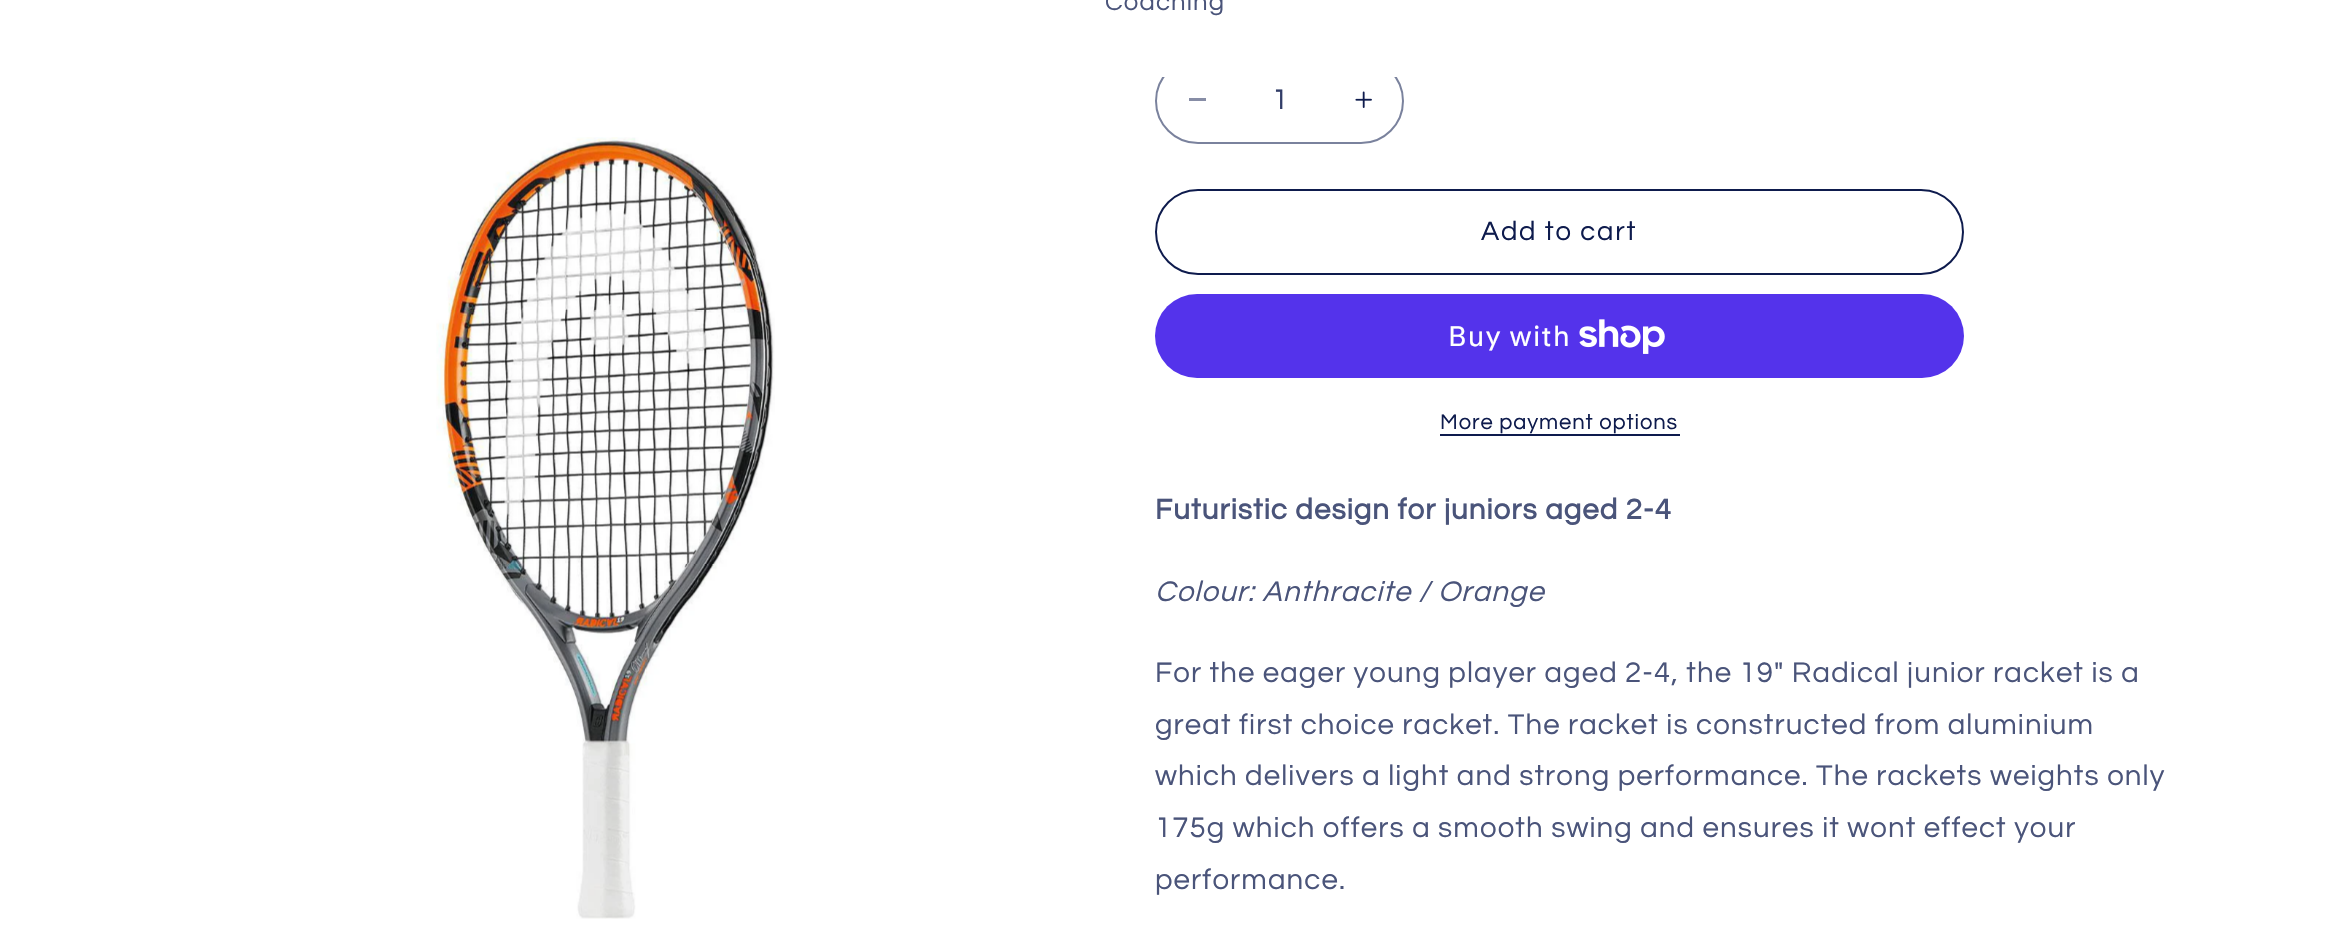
static SkFont makeFont(const char* family, int weight, float size, bool italic = false) {
  SkFontStyle style(weight, SkFontStyle::kNormal_Width,
    italic ? SkFontStyle::kItalic_Slant : SkFontStyle::kUpright_Slant);
  SkFont result(fontMgr->matchFamilyStyle(family, style), size);
  result.setSubpixel(true);
  return result;
}

static void text(SkCanvas* c, const char* s, float x, float y, const SkFont& font, SkColor color) {
  SkPaint ink(SkColor4f::FromColor(color));
  ink.setAntiAlias(true);
  c->drawString(s, x, y, font, ink);
}

static void spacedText(SkCanvas* c, const char* s, float x, float y, const SkFont& font, const SkPaint& ink, float letter, float word) {
  std::vector<SkGlyphID> glyphs(font.countText(s, strlen(s), SkTextEncoding::kUTF8));
  std::vector<float> xs(glyphs.size());
  font.textToGlyphs(s, strlen(s), SkTextEncoding::kUTF8, glyphs);
  font.getXPos(glyphs, xs, x);
  float extra = 0;
  for (size_t i = 0; i < glyphs.size(); i++) {
    xs[i] += extra;
    extra += letter + word * (glyphs[i] == font.unicharToGlyph(' '));
  }
  c->drawTextBlob(SkTextBlob::MakeFromPosHGlyphs(glyphs, xs, y, font), 0, 0, ink);
}

static void box(SkCanvas* c, float l, float t, float r, float b, SkColor color) {
  SkPaint ink(SkColor4f::FromColor(color));
  ink.setAntiAlias(true);
  c->drawRect(SkRect::MakeLTRB(l, t, r, b), ink);
}

static void roundBox(SkCanvas* c, float l, float t, float r, float b, float radius, SkColor color) {
  SkPaint ink(SkColor4f::FromColor(color));
  ink.setAntiAlias(true);
  c->drawRoundRect(SkRect::MakeLTRB(l, t, r, b), radius, radius, ink);
}

static void picture(SkCanvas* c, const char* path, float l, float t, float r, float b) {
  auto image = SkImages::DeferredFromEncodedData(SkData::MakeFromFileName(path));
  c->drawImageRect(image, SkRect::MakeLTRB(l, t, r, b), SkSamplingOptions());
}

void draw(SkCanvas* c) {
  SkPaint paint;
  paint.setAntiAlias(true);
  c->clear(0xffffffff);
  box(c, 1189, 98, 1206, 101, 0xff878da6);
  picture(c, "img_02.png", 1355, 91, 1372, 108);
  paint.setStyle(SkPaint::kStroke_Style);
  paint.setStrokeWidth(2);
  paint.setColor(0xff7a829d);
  c->drawRoundRect(SkRect::MakeLTRB(1156, 59, 1403, 143), 42, 42, paint);
  box(c, 1162, 58, 1397, 77, 0xffffffff);
  SkFont face1 = makeFont("Questrial", 400, 25.75f);
  paint.setStyle(SkPaint::kFill_Style);
  paint.setColor(0xff4a547a);
  spacedText(c, "Coaching", 1105, 10, face1, paint, 1.1f, 0);
  picture(c, "img_01.png", 436, 137, 775, 919);
  SkFont face2 = makeFont("Questrial", 400, 29.4f);
  text(c, "1", 1272, 109, face2, 0xff323d68);
  paint.setStyle(SkPaint::kStroke_Style);
  paint.setColor(0xff0e1b4d);
  c->drawRoundRect(SkRect::MakeLTRB(1156, 190, 1963, 274), 42, 42, paint);
  SkFont face3 = makeFont("Questrial", 400, 27.5f);
  paint.setStyle(SkPaint::kFill_Style);
  spacedText(c, "Add to cart", 1481, 240, face3, paint, 1.75f, 0);
  roundBox(c, 1155, 294, 1964, 378, 42, 0xff5433eb);
  SkFont face4 = makeFont("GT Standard", 400, 28);
  paint.setColor(0xffffffff);
  spacedText(c, "Buy with", 1448, 346, face4, paint, 1.1f, 0);
  picture(c, "img_03.png", 1579, 319, 1665, 354);
  SkFont face5 = makeFont("Questrial", 400, 22);
  paint.setColor(0xff0e1b4d);
  spacedText(c, "More payment options", 1440, 429, face5, paint, 0.9f, 0);
  box(c, 1440, 434, 1680, 436, 0xff0e1b4d);
  SkFont face6 = makeFont("Questrial", 700, 29.4f);
  paint.setColor(0xff4a547a);
  spacedText(c, "Futuristic design for juniors aged 2-4", 1155, 519, face6, paint, 1.1f, 0);
  SkFont face7 = makeFont("Questrial", 400, 29.4f, true);
  spacedText(c, "Colour: Anthracite / Orange", 1155, 601, face7, paint, 1.1f, 0);
  spacedText(c, "For the eager young player aged 2-4, the 19\" Radical junior racket is a", 1155, 682, face2, paint, 1.1f, 0);
  spacedText(c, "great first choice racket. The racket is constructed from aluminium", 1155, 734, face2, paint, 1.1f, 0);
  spacedText(c, "which delivers a light and strong performance. The rackets weights only", 1155, 785, face2, paint, 1.1f, 0);
  spacedText(c, "175g which offers a smooth swing and ensures it wont effect your", 1155, 837, face2, paint, 1.1f, 0);
  spacedText(c, "performance.", 1155, 889, face2, paint, 1.1f, 0);
}
